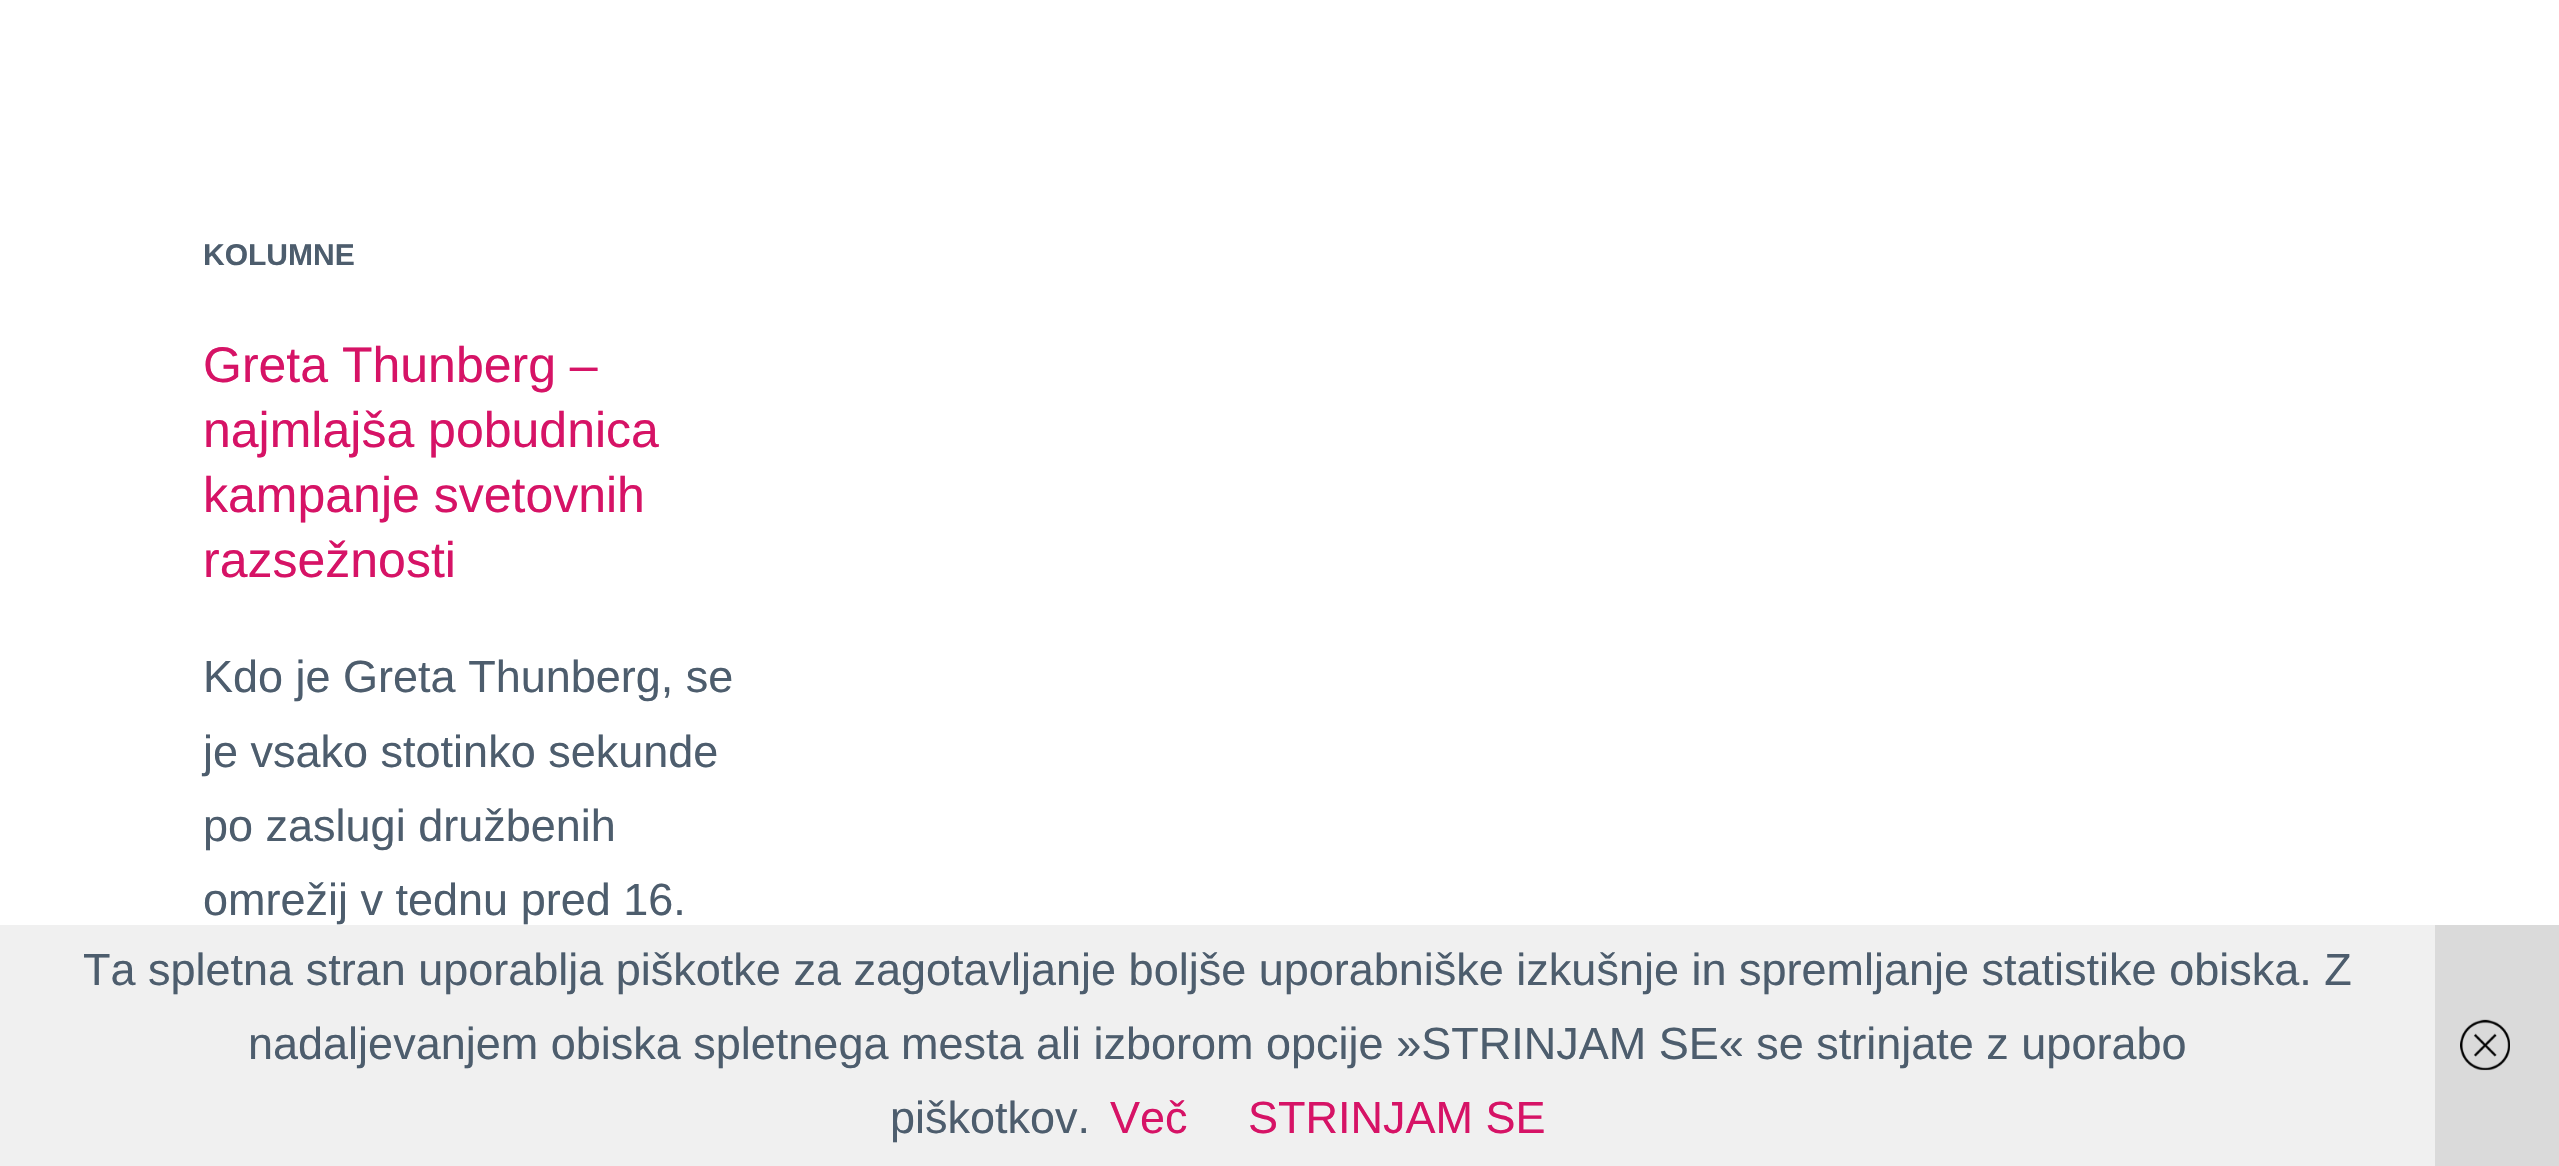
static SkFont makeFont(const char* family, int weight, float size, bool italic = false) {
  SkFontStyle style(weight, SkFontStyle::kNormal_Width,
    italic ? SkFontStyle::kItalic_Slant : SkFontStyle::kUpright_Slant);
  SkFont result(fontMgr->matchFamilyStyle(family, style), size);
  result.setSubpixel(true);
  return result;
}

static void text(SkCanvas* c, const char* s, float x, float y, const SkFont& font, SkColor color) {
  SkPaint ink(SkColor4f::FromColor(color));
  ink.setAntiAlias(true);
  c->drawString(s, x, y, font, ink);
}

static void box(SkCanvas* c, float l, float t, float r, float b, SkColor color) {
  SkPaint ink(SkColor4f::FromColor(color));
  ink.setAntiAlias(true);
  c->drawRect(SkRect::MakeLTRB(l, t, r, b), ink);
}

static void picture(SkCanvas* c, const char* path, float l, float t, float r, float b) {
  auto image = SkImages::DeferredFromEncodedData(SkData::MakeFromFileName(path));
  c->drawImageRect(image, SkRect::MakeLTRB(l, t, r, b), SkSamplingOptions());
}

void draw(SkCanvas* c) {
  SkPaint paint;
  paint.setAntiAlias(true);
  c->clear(0xffffffff);
  SkFont face1 = makeFont("Liberation Sans", 700, 30);
  text(c, "KOLUMNE", 203, 265, face1, 0xff4d5d6d);
  SkFont face2 = makeFont("Liberation Sans", 400, 50);
  text(c, "Greta Thunberg –", 203, 382, face2, 0xffd61366);
  text(c, "najmlajša pobudnica", 203, 447, face2, 0xffd61366);
  text(c, "kampanje svetovnih", 203, 512, face2, 0xffd61366);
  text(c, "razsežnosti", 203, 577, face2, 0xffd61366);
  SkFont face3 = makeFont("Liberation Sans", 400, 45);
  text(c, "Kdo je Greta Thunberg, se", 203, 692, face3, 0xff4d5d6d);
  text(c, "je vsako stotinko sekunde", 203, 767, face3, 0xff4d5d6d);
  text(c, "po zaslugi družbenih", 203, 841, face3, 0xff4d5d6d);
  text(c, "omrežij v tednu pred 16.", 203, 915, face3, 0xff4d5d6d);
  box(c, 0, 925, 2435, 1166, 0xe6eeeeee);
  text(c, "Ta spletna stran uporablja piškotke za zagotavljanje boljše uporabniške izkušnje in spremljanje statistike obiska. Z", 83, 985, face3, 0xff4d5d6d);
  text(c, "nadaljevanjem obiska spletnega mesta ali izborom opcije »STRINJAM SE« se strinjate z uporabo", 248, 1059, face3, 0xff4d5d6d);
  text(c, "piškotkov.", 890, 1133, face3, 0xff4d5d6d);
  text(c, "Več", 1110, 1133, face3, 0xffd61366);
  text(c, "STRINJAM SE", 1248, 1133, face3, 0xffd61366);
  box(c, 2435, 925, 2559, 1166, 0xffdadada);
  picture(c, "img_01.png", 2460, 1019, 2510, 1071);
}
